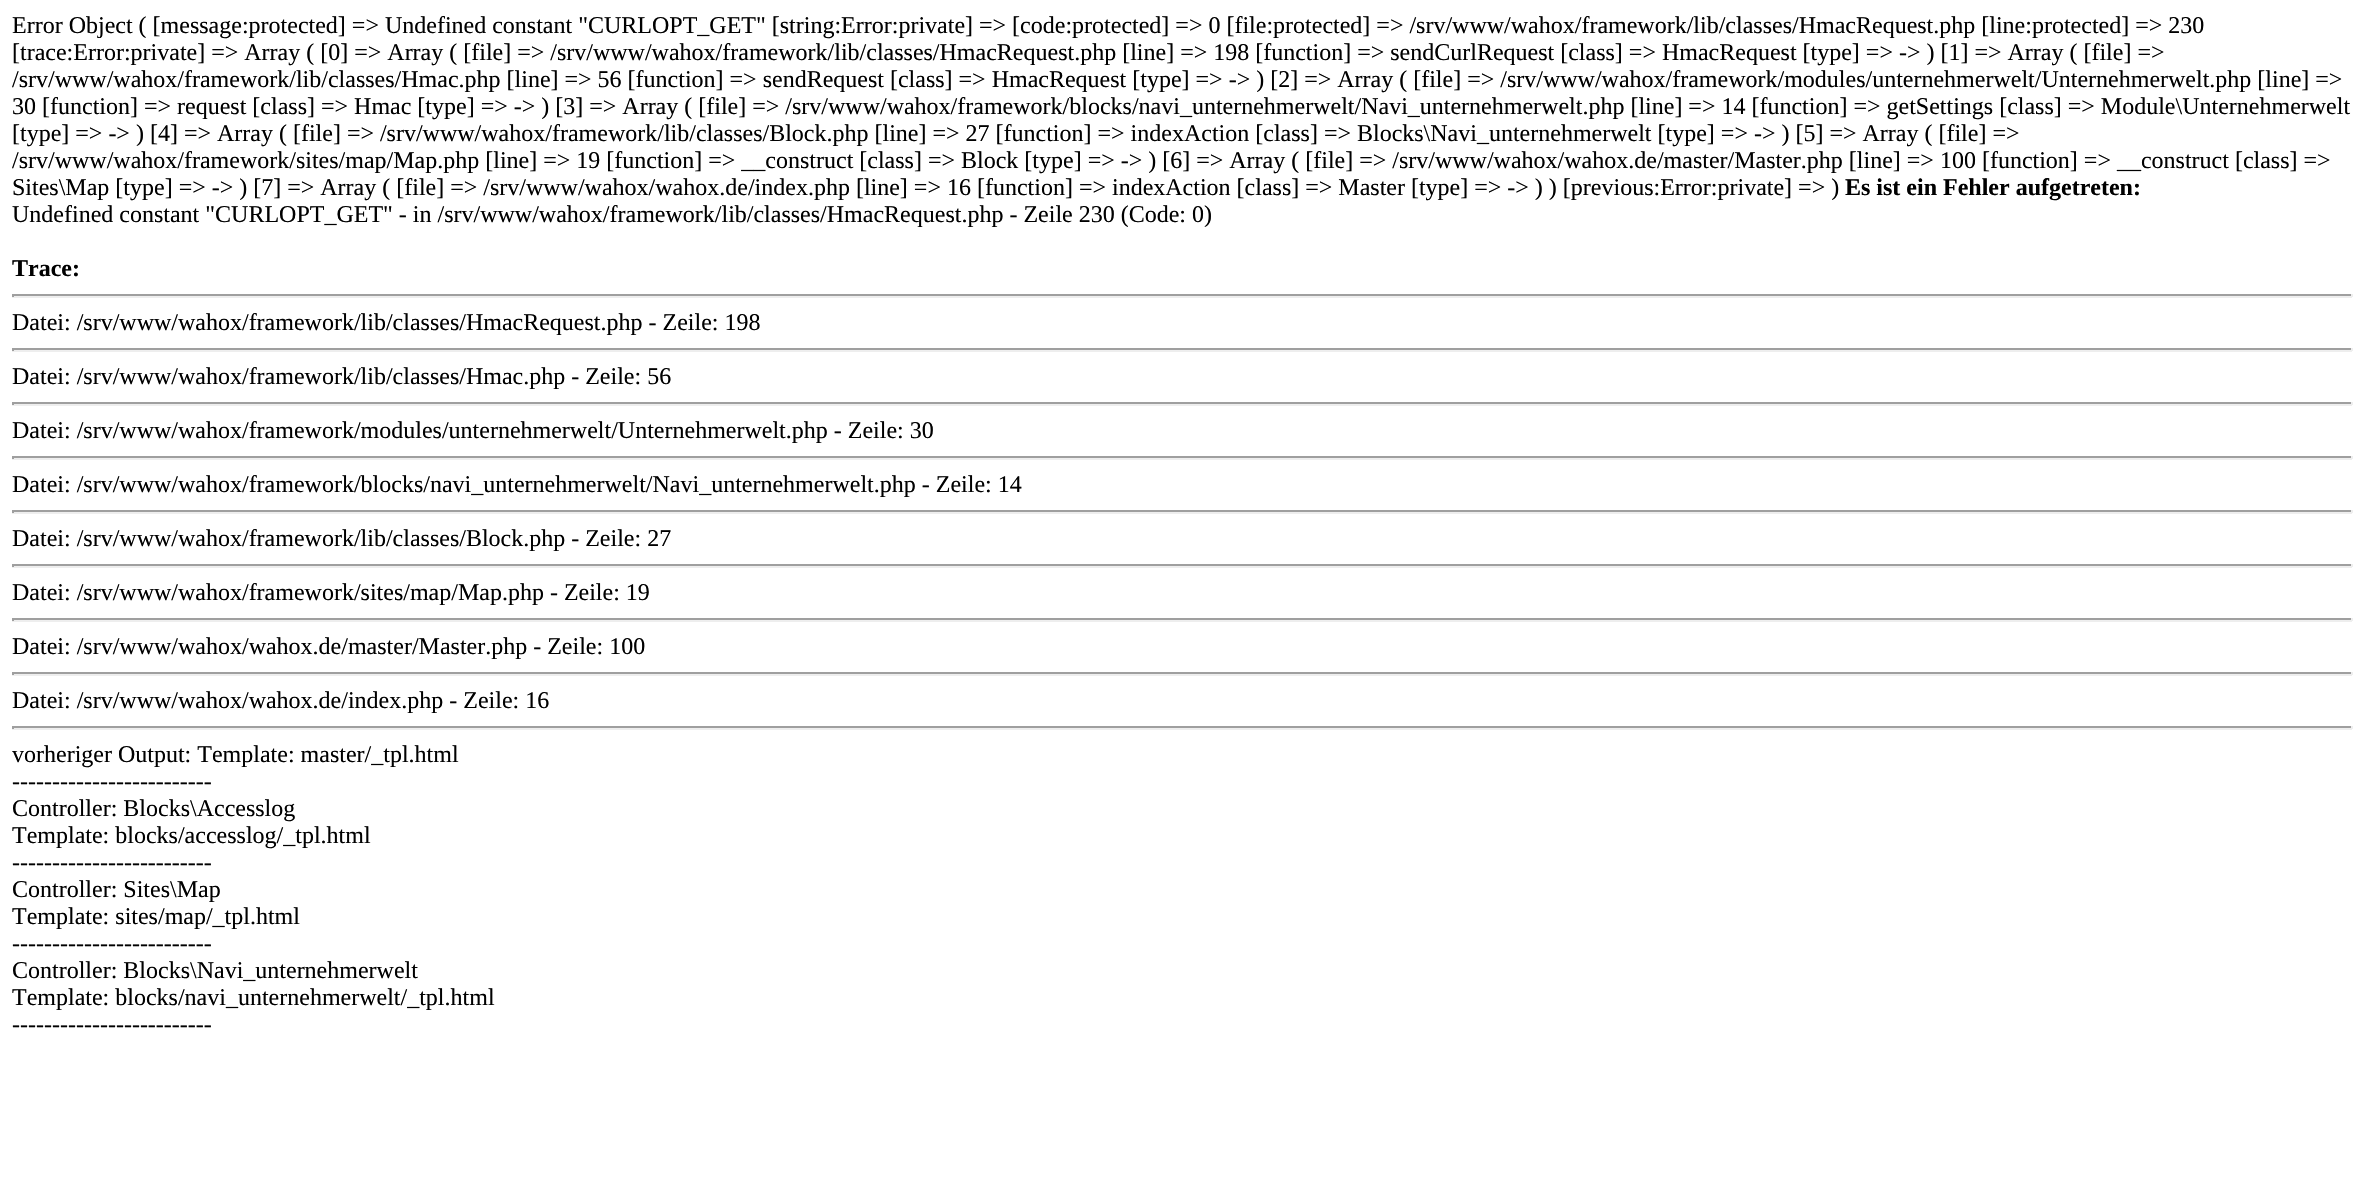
static SkFont makeFont(const char* family, int weight, float size, bool italic = false) {
  SkFontStyle style(weight, SkFontStyle::kNormal_Width,
    italic ? SkFontStyle::kItalic_Slant : SkFontStyle::kUpright_Slant);
  SkFont result(fontMgr->matchFamilyStyle(family, style), size);
  result.setSubpixel(true);
  return result;
}

static void text(SkCanvas* c, const char* s, float x, float y, const SkFont& font, SkColor color) {
  SkPaint ink(SkColor4f::FromColor(color));
  ink.setAntiAlias(true);
  c->drawString(s, x, y, font, ink);
}

static void box(SkCanvas* c, float l, float t, float r, float b, SkColor color) {
  SkPaint ink(SkColor4f::FromColor(color));
  ink.setAntiAlias(true);
  c->drawRect(SkRect::MakeLTRB(l, t, r, b), ink);
}

void draw(SkCanvas* c) {
  SkPaint paint;
  paint.setAntiAlias(true);
  c->clear(0xffffffff);
  SkFont face1 = makeFont("Liberation Serif", 400, 24);
  text(c, "Error Object ( [message:protected] => Undefined constant \"CURLOPT_GET\" [string:Error:private] => [code:protected] => 0 [file:protected] => /srv/www/wahox/framework/lib/classes/HmacRequest.php [line:protected] => 230", 12, 33, face1, 0xff000000);
  text(c, "[trace:Error:private] => Array ( [0] => Array ( [file] => /srv/www/wahox/framework/lib/classes/HmacRequest.php [line] => 198 [function] => sendCurlRequest [class] => HmacRequest [type] => -> ) [1] => Array ( [file] =>", 12, 60, face1, 0xff000000);
  text(c, "/srv/www/wahox/framework/lib/classes/Hmac.php [line] => 56 [function] => sendRequest [class] => HmacRequest [type] => -> ) [2] => Array ( [file] => /srv/www/wahox/framework/modules/unternehmerwelt/Unternehmerwelt.php [line] =>", 12, 87, face1, 0xff000000);
  text(c, "30 [function] => request [class] => Hmac [type] => -> ) [3] => Array ( [file] => /srv/www/wahox/framework/blocks/navi_unternehmerwelt/Navi_unternehmerwelt.php [line] => 14 [function] => getSettings [class] => Module\\Unternehmerwelt", 12, 114, face1, 0xff000000);
  text(c, "[type] => -> ) [4] => Array ( [file] => /srv/www/wahox/framework/lib/classes/Block.php [line] => 27 [function] => indexAction [class] => Blocks\\Navi_unternehmerwelt [type] => -> ) [5] => Array ( [file] =>", 12, 141, face1, 0xff000000);
  text(c, "/srv/www/wahox/framework/sites/map/Map.php [line] => 19 [function] => __construct [class] => Block [type] => -> ) [6] => Array ( [file] => /srv/www/wahox/wahox.de/master/Master.php [line] => 100 [function] => __construct [class] =>", 12, 168, face1, 0xff000000);
  text(c, "Sites\\Map [type] => -> ) [7] => Array ( [file] => /srv/www/wahox/wahox.de/index.php [line] => 16 [function] => indexAction [class] => Master [type] => -> ) ) [previous:Error:private] => )", 12, 195, face1, 0xff000000);
  SkFont face2 = makeFont("Liberation Serif", 700, 24);
  text(c, "Es ist ein Fehler aufgetreten:", 1845, 195, face2, 0xff000000);
  text(c, "Undefined constant \"CURLOPT_GET\" - in /srv/www/wahox/framework/lib/classes/HmacRequest.php - Zeile 230 (Code: 0)", 12, 222, face1, 0xff000000);
  text(c, "Trace:", 12, 276, face2, 0xff000000);
  box(c, 12, 294, 2352, 296, 0xff9f9f9f);
  box(c, 2351, 294, 2353, 297, 0xffeeeeee);
  box(c, 12, 296, 2352, 298, 0xffeeeeee);
  box(c, 12, 294, 14, 297, 0xff9f9f9f);
  text(c, "Datei: /srv/www/wahox/framework/lib/classes/HmacRequest.php - Zeile: 198", 12, 330, face1, 0xff000000);
  box(c, 12, 348, 2352, 350, 0xff9f9f9f);
  box(c, 2351, 348, 2353, 351, 0xffeeeeee);
  box(c, 12, 350, 2352, 352, 0xffeeeeee);
  box(c, 12, 348, 14, 351, 0xff9f9f9f);
  text(c, "Datei: /srv/www/wahox/framework/lib/classes/Hmac.php - Zeile: 56", 12, 384, face1, 0xff000000);
  box(c, 12, 402, 2352, 404, 0xff9f9f9f);
  box(c, 2351, 402, 2353, 405, 0xffeeeeee);
  box(c, 12, 404, 2352, 406, 0xffeeeeee);
  box(c, 12, 402, 14, 405, 0xff9f9f9f);
  text(c, "Datei: /srv/www/wahox/framework/modules/unternehmerwelt/Unternehmerwelt.php - Zeile: 30", 12, 438, face1, 0xff000000);
  box(c, 12, 456, 2352, 458, 0xff9f9f9f);
  box(c, 2351, 456, 2353, 459, 0xffeeeeee);
  box(c, 12, 458, 2352, 460, 0xffeeeeee);
  box(c, 12, 456, 14, 459, 0xff9f9f9f);
  text(c, "Datei: /srv/www/wahox/framework/blocks/navi_unternehmerwelt/Navi_unternehmerwelt.php - Zeile: 14", 12, 492, face1, 0xff000000);
  box(c, 12, 510, 2352, 512, 0xff9f9f9f);
  box(c, 2351, 510, 2353, 513, 0xffeeeeee);
  box(c, 12, 512, 2352, 514, 0xffeeeeee);
  box(c, 12, 510, 14, 513, 0xff9f9f9f);
  text(c, "Datei: /srv/www/wahox/framework/lib/classes/Block.php - Zeile: 27", 12, 546, face1, 0xff000000);
  box(c, 12, 564, 2352, 566, 0xff9f9f9f);
  box(c, 2351, 564, 2353, 567, 0xffeeeeee);
  box(c, 12, 566, 2352, 568, 0xffeeeeee);
  box(c, 12, 564, 14, 567, 0xff9f9f9f);
  text(c, "Datei: /srv/www/wahox/framework/sites/map/Map.php - Zeile: 19", 12, 600, face1, 0xff000000);
  box(c, 12, 618, 2352, 620, 0xff9f9f9f);
  box(c, 2351, 618, 2353, 621, 0xffeeeeee);
  box(c, 12, 620, 2352, 622, 0xffeeeeee);
  box(c, 12, 618, 14, 621, 0xff9f9f9f);
  text(c, "Datei: /srv/www/wahox/wahox.de/master/Master.php - Zeile: 100", 12, 654, face1, 0xff000000);
  box(c, 12, 672, 2352, 674, 0xff9f9f9f);
  box(c, 2351, 672, 2353, 675, 0xffeeeeee);
  box(c, 12, 674, 2352, 676, 0xffeeeeee);
  box(c, 12, 672, 14, 675, 0xff9f9f9f);
  text(c, "Datei: /srv/www/wahox/wahox.de/index.php - Zeile: 16", 12, 708, face1, 0xff000000);
  box(c, 12, 726, 2352, 728, 0xff9f9f9f);
  box(c, 2351, 726, 2353, 729, 0xffeeeeee);
  box(c, 12, 728, 2352, 730, 0xffeeeeee);
  box(c, 12, 726, 14, 729, 0xff9f9f9f);
  text(c, "vorheriger Output: Template: master/_tpl.html", 12, 762, face1, 0xff000000);
  text(c, "-------------------------", 12, 789, face1, 0xff000000);
  text(c, "Controller: Blocks\\Accesslog", 12, 816, face1, 0xff000000);
  text(c, "Template: blocks/accesslog/_tpl.html", 12, 843, face1, 0xff000000);
  text(c, "-------------------------", 12, 870, face1, 0xff000000);
  text(c, "Controller: Sites\\Map", 12, 897, face1, 0xff000000);
  text(c, "Template: sites/map/_tpl.html", 12, 924, face1, 0xff000000);
  text(c, "-------------------------", 12, 951, face1, 0xff000000);
  text(c, "Controller: Blocks\\Navi_unternehmerwelt", 12, 978, face1, 0xff000000);
  text(c, "Template: blocks/navi_unternehmerwelt/_tpl.html", 12, 1005, face1, 0xff000000);
  text(c, "-------------------------", 12, 1032, face1, 0xff000000);
}
